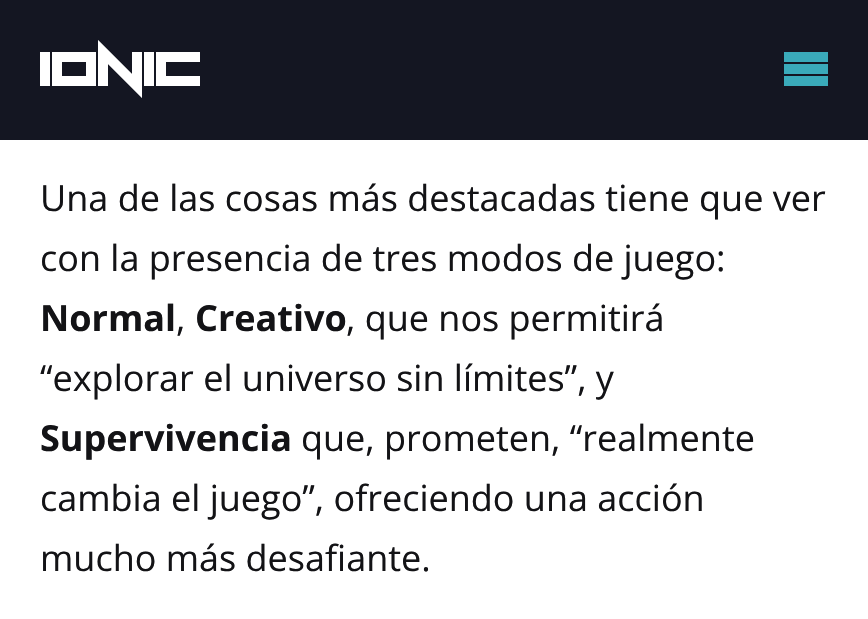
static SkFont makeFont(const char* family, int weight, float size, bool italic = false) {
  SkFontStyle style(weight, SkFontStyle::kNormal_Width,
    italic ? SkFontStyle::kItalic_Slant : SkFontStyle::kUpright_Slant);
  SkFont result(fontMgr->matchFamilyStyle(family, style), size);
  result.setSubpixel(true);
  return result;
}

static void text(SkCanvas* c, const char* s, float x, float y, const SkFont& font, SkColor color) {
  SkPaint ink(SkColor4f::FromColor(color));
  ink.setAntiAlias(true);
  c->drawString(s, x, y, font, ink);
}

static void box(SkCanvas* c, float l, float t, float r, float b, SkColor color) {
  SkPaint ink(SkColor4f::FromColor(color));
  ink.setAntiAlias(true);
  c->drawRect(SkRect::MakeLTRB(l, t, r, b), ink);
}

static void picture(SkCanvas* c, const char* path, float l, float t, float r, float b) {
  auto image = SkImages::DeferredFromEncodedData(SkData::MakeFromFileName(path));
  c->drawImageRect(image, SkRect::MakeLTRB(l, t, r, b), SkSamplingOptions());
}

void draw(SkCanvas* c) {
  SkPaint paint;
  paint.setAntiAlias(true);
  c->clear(0xffffffff);
  box(c, 0, 0, 868, 140, 0xff141622);
  picture(c, "img_01.png", 40, 40, 200, 98);
  box(c, 784, 52, 828, 62, 0xff3aaaba);
  box(c, 784, 64, 828, 74, 0xff3aaaba);
  box(c, 784, 76, 828, 86, 0xff3aaaba);
  SkFont face1 = makeFont("Open Sans", 400, 36);
  text(c, "Una de las cosas más destacadas tiene que ver", 40, 211, face1, 0xff131316);
  text(c, "con la presencia de tres modos de juego:", 40, 271, face1, 0xff131316);
  SkFont face2 = makeFont("Open Sans", 700, 36);
  text(c, "Normal", 40, 331, face2, 0xff131316);
  text(c, ",", 176, 331, face1, 0xff131316);
  text(c, "Creativo", 195, 331, face2, 0xff131316);
  text(c, ", que nos permitirá", 346, 331, face1, 0xff131316);
  text(c, "“explorar el universo sin límites”, y", 40, 391, face1, 0xff131316);
  text(c, "Supervivencia", 40, 451, face2, 0xff131316);
  text(c, "que, prometen, “realmente", 301, 451, face1, 0xff131316);
  text(c, "cambia el juego”, ofreciendo una acción", 40, 511, face1, 0xff131316);
  text(c, "mucho más desafiante.", 40, 571, face1, 0xff131316);
}
